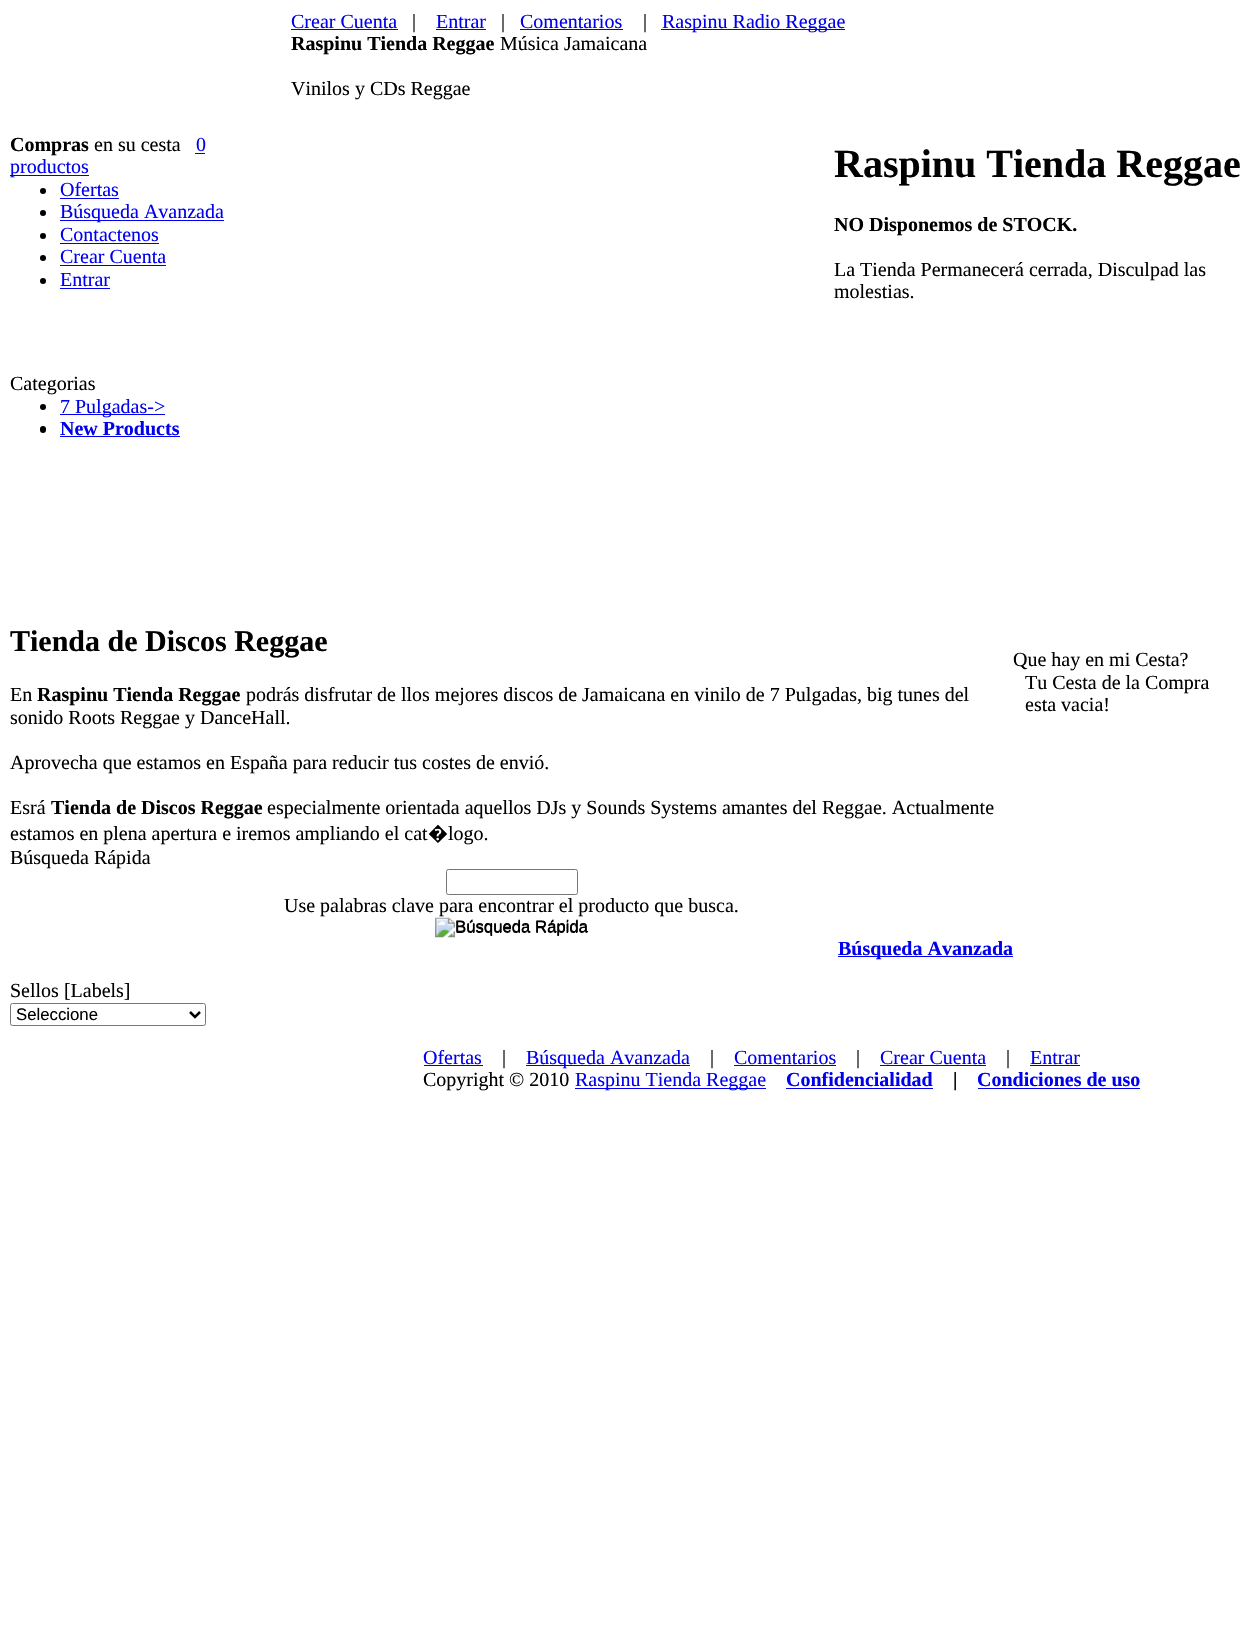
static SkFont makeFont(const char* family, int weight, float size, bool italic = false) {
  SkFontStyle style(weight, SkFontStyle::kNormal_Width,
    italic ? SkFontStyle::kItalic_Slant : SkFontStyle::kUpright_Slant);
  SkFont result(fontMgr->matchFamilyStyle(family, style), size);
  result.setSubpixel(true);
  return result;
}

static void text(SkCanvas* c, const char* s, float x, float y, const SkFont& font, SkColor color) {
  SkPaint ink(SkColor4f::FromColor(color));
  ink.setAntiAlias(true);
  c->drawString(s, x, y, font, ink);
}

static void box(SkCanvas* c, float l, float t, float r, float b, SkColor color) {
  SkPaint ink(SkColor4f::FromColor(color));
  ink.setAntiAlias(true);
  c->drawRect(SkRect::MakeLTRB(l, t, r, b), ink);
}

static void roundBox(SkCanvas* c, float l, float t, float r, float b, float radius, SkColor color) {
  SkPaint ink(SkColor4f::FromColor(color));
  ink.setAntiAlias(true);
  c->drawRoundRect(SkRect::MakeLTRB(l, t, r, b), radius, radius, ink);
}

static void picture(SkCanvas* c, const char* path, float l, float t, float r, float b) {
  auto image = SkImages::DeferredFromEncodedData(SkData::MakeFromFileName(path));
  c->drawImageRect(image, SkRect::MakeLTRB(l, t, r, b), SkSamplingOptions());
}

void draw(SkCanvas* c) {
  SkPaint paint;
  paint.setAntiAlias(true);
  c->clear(0xffffffff);
  SkFont face1 = makeFont("Liberation Serif", 400, 20);
  text(c, "Crear Cuenta", 291, 28, face1, 0xff0000ee);
  box(c, 291, 29, 398, 30, 0xff0000ee);
  text(c, "|", 412, 28, face1, 0xff000000);
  text(c, "Entrar", 436, 28, face1, 0xff0000ee);
  box(c, 436, 29, 486, 30, 0xff0000ee);
  text(c, "|", 501, 28, face1, 0xff000000);
  text(c, "Comentarios", 520, 28, face1, 0xff0000ee);
  box(c, 520, 29, 623, 30, 0xff0000ee);
  text(c, "|", 643, 28, face1, 0xff000000);
  box(c, 661, 29, 845, 30, 0xff0000ee);
  text(c, "Raspinu Radio Reggae", 662, 28, face1, 0xff0000ee);
  SkFont face2 = makeFont("Liberation Serif", 700, 20);
  text(c, "Raspinu Tienda Reggae", 291, 50, face2, 0xff000000);
  text(c, "Música Jamaicana", 500, 50, face1, 0xff000000);
  text(c, "Vinilos y CDs Reggae", 291, 95, face1, 0xff000000);
  text(c, "Compras", 10, 151, face2, 0xff000000);
  text(c, "en su cesta", 94, 151, face1, 0xff000000);
  text(c, "0", 196, 151, face1, 0xff0000ee);
  box(c, 195, 153, 205, 154, 0xff0000ee);
  box(c, 10, 175, 89, 176, 0xff0000ee);
  text(c, "productos", 10, 173, face1, 0xff0000ee);
  paint.setColor(0xff000000);
  c->drawCircle(43, 191, 3, paint);
  text(c, "Ofertas", 60, 196, face1, 0xff0000ee);
  box(c, 60, 198, 119, 199, 0xff0000ee);
  c->drawCircle(43, 213, 3, paint);
  box(c, 60, 220, 224, 221, 0xff0000ee);
  text(c, "Búsqueda Avanzada", 60, 218, face1, 0xff0000ee);
  c->drawCircle(43, 236, 3, paint);
  text(c, "Contactenos", 60, 241, face1, 0xff0000ee);
  box(c, 60, 243, 159, 244, 0xff0000ee);
  c->drawCircle(43, 258, 3, paint);
  text(c, "Crear Cuenta", 60, 263, face1, 0xff0000ee);
  box(c, 60, 265, 166, 266, 0xff0000ee);
  c->drawCircle(43, 281, 3, paint);
  text(c, "Entrar", 60, 286, face1, 0xff0000ee);
  box(c, 60, 288, 110, 289, 0xff0000ee);
  SkFont face3 = makeFont("Liberation Serif", 700, 40);
  text(c, "Raspinu Tienda Reggae", 834, 177, face3, 0xff000000);
  text(c, "NO Disponemos de STOCK.", 834, 231, face2, 0xff000000);
  text(c, "La Tienda Permanecerá cerrada, Disculpad las", 834, 276, face1, 0xff000000);
  text(c, "molestias.", 834, 298, face1, 0xff000000);
  text(c, "Categorias", 10, 390, face1, 0xff000000);
  c->drawCircle(43, 407, 3, paint);
  box(c, 60, 414, 165, 415, 0xff0000ee);
  text(c, "7 Pulgadas->", 60, 413, face1, 0xff0000ee);
  roundBox(c, 40, 426, 46, 433, 3, 0xff000000);
  text(c, "New Products", 60, 435, face2, 0xff0000ee);
  box(c, 60, 436, 180, 437, 0xff0000ee);
  SkFont face4 = makeFont("Liberation Serif", 700, 30);
  text(c, "Tienda de Discos Reggae", 10, 651, face4, 0xff000000);
  text(c, "En", 10, 701, face1, 0xff000000);
  text(c, "Raspinu Tienda Reggae", 37, 701, face2, 0xff000000);
  text(c, "podrás disfrutar de llos mejores discos de Jamaicana en vinilo de 7 Pulgadas, big tunes del", 246, 701, face1, 0xff000000);
  text(c, "sonido Roots Reggae y DanceHall.", 10, 724, face1, 0xff000000);
  text(c, "Aprovecha que estamos en España para reducir tus costes de envió.", 10, 769, face1, 0xff000000);
  text(c, "Esrá", 10, 814, face1, 0xff000000);
  text(c, "Tienda de Discos Reggae", 51, 814, face2, 0xff000000);
  text(c, "especialmente orientada aquellos DJs y Sounds Systems amantes del Reggae. Actualmente", 267, 814, face1, 0xff000000);
  text(c, "estamos en plena apertura e iremos ampliando el cat", 10, 840, face1, 0xff000000);
  SkFont face5 = makeFont("Noto Sans", 400, 20);
  text(c, "�", 428, 840, face5, 0xff000000);
  text(c, "logo.", 448, 840, face1, 0xff000000);
  text(c, "Búsqueda Rápida", 10, 864, face1, 0xff000000);
  paint.setStyle(SkPaint::kStroke_Style);
  paint.setStrokeWidth(1);
  paint.setColor(0xff767676);
  c->drawRoundRect(SkRect::MakeLTRB(446.5f, 869.5f, 577.5f, 894.5f), 2, 2, paint);
  text(c, "Use palabras clave para encontrar el producto que busca.", 284, 912, face1, 0xff000000);
  picture(c, "img_01.png", 435, 917, 588, 938);
  SkFont face6 = makeFont("Liberation Sans", 400, 16.75f);
  text(c, "Búsqueda Rápida", 455, 932, face6, 0xff000000);
  box(c, 838, 956, 1013, 957, 0xff0000ee);
  text(c, "Búsqueda Avanzada", 838, 955, face2, 0xff0000ee);
  text(c, "Sellos [Labels]", 10, 997, face1, 0xff000000);
  c->drawRoundRect(SkRect::MakeLTRB(10.5f, 1003.5f, 205.5f, 1025.5f), 2, 2, paint);
  paint.setStrokeWidth(2.5f);
  paint.setColor(0xff000000);
  c->drawPath(SkPathBuilder().moveTo(190, 1012).lineTo(195, 1017).lineTo(200, 1012).detach(), paint);
  text(c, "Seleccione", 16, 1020, face6, 0xff000000);
  text(c, "Que hay en mi Cesta?", 1013, 666, face1, 0xff000000);
  text(c, "Tu Cesta de la Compra", 1025, 689, face1, 0xff000000);
  text(c, "esta vacia!", 1025, 711, face1, 0xff000000);
  text(c, "Ofertas", 423, 1064, face1, 0xff0000ee);
  box(c, 424, 1065, 483, 1066, 0xff0000ee);
  text(c, "|", 502, 1064, face1, 0xff000000);
  box(c, 526, 1065, 690, 1066, 0xff0000ee);
  text(c, "Búsqueda Avanzada", 526, 1064, face1, 0xff0000ee);
  text(c, "|", 710, 1064, face1, 0xff000000);
  text(c, "Comentarios", 734, 1064, face1, 0xff0000ee);
  box(c, 734, 1065, 836, 1066, 0xff0000ee);
  text(c, "|", 856, 1064, face1, 0xff000000);
  text(c, "Crear Cuenta", 880, 1064, face1, 0xff0000ee);
  box(c, 880, 1065, 986, 1066, 0xff0000ee);
  text(c, "|", 1006, 1064, face1, 0xff000000);
  text(c, "Entrar", 1030, 1064, face1, 0xff0000ee);
  box(c, 1030, 1065, 1080, 1066, 0xff0000ee);
  text(c, "Copyright © 2010", 423, 1086, face1, 0xff000000);
  box(c, 575, 1088, 766, 1089, 0xff0000ee);
  text(c, "Raspinu Tienda Reggae", 575, 1086, face1, 0xff0000ee);
  text(c, "Confidencialidad", 786, 1086, face2, 0xff0000ee);
  box(c, 786, 1088, 933, 1089, 0xff0000ee);
  text(c, "|", 953, 1086, face2, 0xff000000);
  text(c, "Condiciones de uso", 977, 1086, face2, 0xff0000ee);
  box(c, 978, 1088, 1140, 1089, 0xff0000ee);
}
